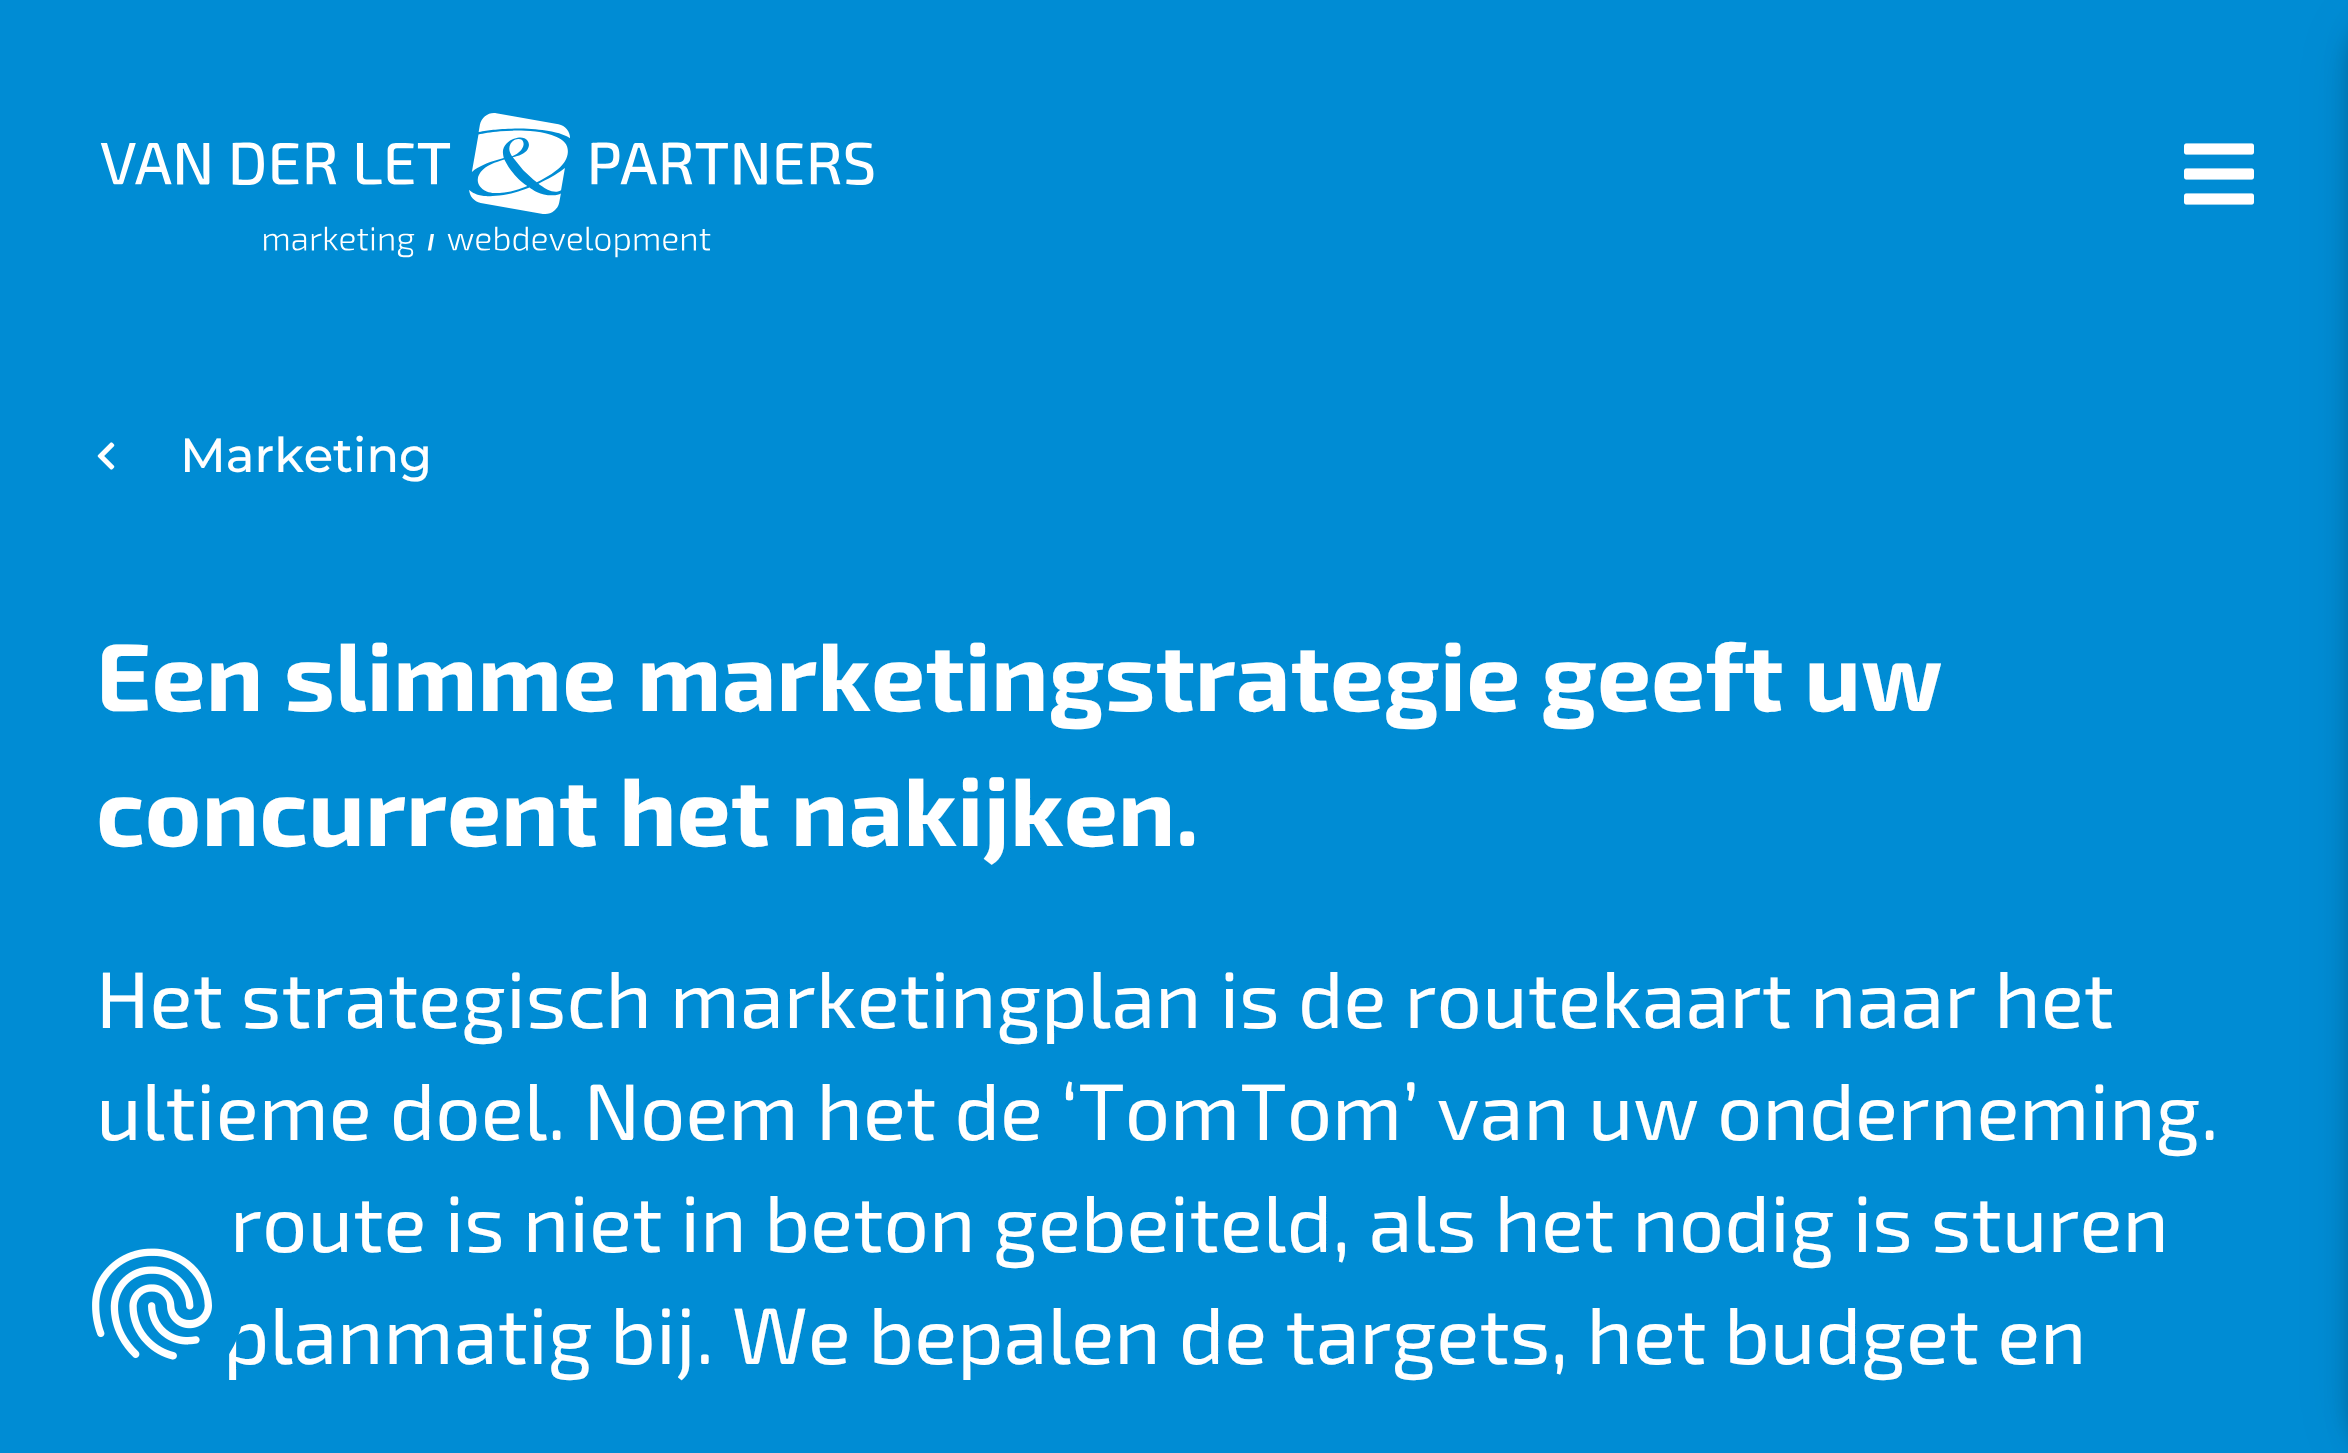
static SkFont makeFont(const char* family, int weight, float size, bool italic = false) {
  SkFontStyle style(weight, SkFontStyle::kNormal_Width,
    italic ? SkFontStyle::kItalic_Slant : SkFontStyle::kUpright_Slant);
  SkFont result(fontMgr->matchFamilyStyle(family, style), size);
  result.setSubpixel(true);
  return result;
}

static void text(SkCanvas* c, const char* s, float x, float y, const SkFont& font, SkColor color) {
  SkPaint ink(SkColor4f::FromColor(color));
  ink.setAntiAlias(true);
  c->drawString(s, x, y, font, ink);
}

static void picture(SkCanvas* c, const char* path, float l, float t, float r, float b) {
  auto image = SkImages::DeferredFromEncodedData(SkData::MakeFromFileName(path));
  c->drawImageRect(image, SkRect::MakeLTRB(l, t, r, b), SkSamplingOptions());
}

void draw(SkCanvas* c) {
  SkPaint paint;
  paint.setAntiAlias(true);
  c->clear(0xff008cd4);
  picture(c, "img_01.png", 100, 113, 874, 258);
  picture(c, "img_02.png", 2184, 143, 2254, 205);
  picture(c, "img_03.png", 97, 442, 115, 470);
  SkFont face1 = makeFont("Montserrat", 500, 48);
  text(c, "Marketing", 180, 472, face1, 0xffffffff);
  SkFont face2 = makeFont("Exo 2", 700, 96);
  text(c, "Een slimme marketingstrategie geeft uw", 96, 711, face2, 0xffffffff);
  text(c, "concurrent het nakijken.", 96, 846, face2, 0xffffffff);
  SkFont face3 = makeFont("Exo 2", 400, 80);
  text(c, "Het strategisch marketingplan is de routekaart naar het", 96, 1028, face3, 0xffffffff);
  text(c, "ultieme doel. Noem het de ‘TomTom’ van uw onderneming.", 96, 1140, face3, 0xffffffff);
  text(c, "route is niet in beton gebeiteld, als het nodig is sturen", 230, 1252, face3, 0xffffffff);
  text(c, "planmatig bij. We bepalen de targets, het budget en", 223, 1364, face3, 0xffffffff);
  paint.setColor(0x1f000000);
  paint.setMaskFilter(SkMaskFilter::MakeBlur(kNormal_SkBlurStyle, 20));
  c->drawRoundRect(SkRect::MakeLTRB(2348, 8, 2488, 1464), 80, 80, paint);
  paint.setMaskFilter(nullptr);
  paint.setColor(0x29000000);
  paint.setMaskFilter(SkMaskFilter::MakeBlur(kNormal_SkBlurStyle, 10));
  c->drawRoundRect(SkRect::MakeLTRB(2348, 8, 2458, 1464), 80, 80, paint);
  paint.setMaskFilter(nullptr);
  paint.setColor(0xff008cd4);
  c->drawCircle(152, 1304, 90, paint);
  paint.setStyle(SkPaint::kStroke_Style);
  paint.setStrokeWidth(4);
  c->drawCircle(152, 1304, 90, paint);
  picture(c, "img_04.png", 92, 1248, 212, 1360);
}
